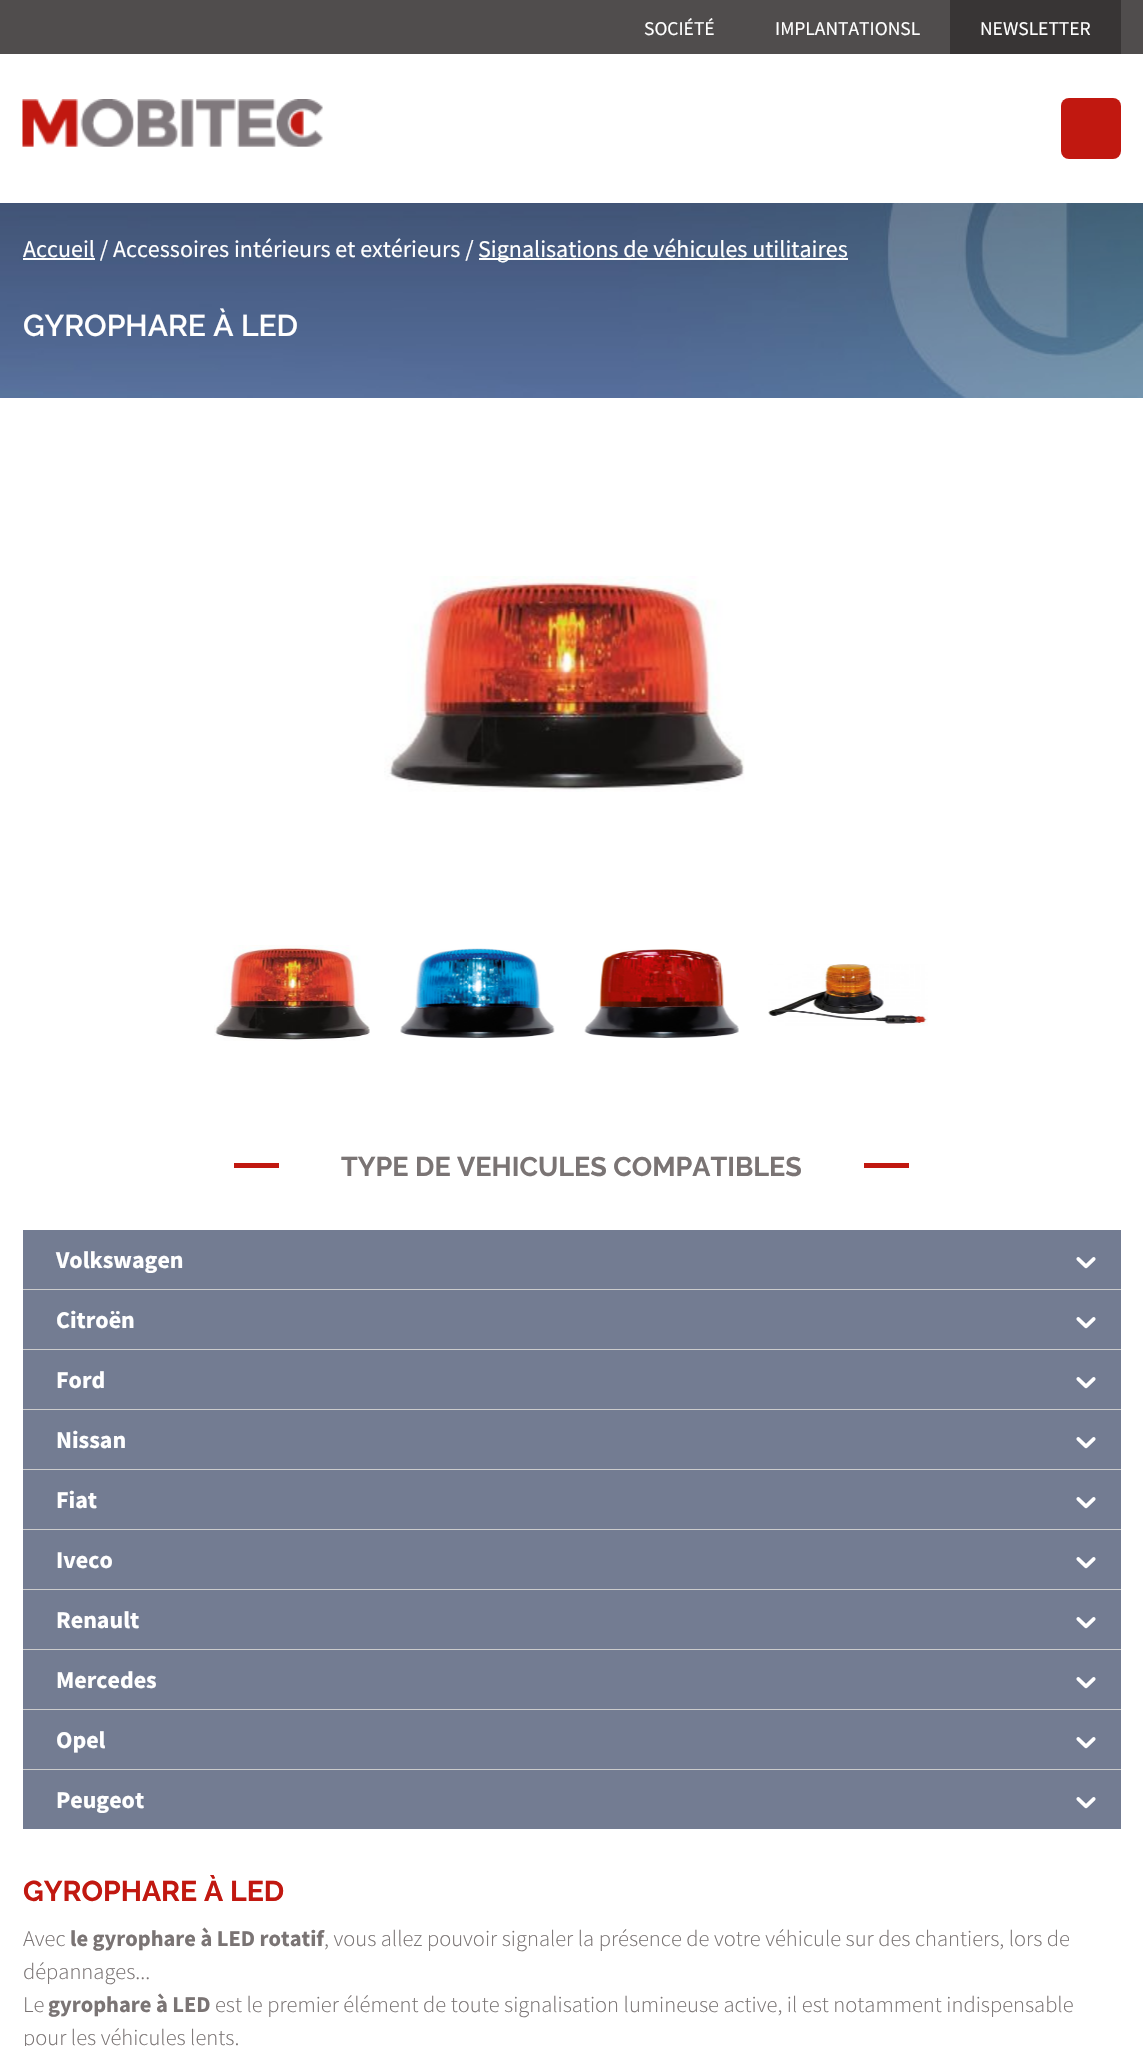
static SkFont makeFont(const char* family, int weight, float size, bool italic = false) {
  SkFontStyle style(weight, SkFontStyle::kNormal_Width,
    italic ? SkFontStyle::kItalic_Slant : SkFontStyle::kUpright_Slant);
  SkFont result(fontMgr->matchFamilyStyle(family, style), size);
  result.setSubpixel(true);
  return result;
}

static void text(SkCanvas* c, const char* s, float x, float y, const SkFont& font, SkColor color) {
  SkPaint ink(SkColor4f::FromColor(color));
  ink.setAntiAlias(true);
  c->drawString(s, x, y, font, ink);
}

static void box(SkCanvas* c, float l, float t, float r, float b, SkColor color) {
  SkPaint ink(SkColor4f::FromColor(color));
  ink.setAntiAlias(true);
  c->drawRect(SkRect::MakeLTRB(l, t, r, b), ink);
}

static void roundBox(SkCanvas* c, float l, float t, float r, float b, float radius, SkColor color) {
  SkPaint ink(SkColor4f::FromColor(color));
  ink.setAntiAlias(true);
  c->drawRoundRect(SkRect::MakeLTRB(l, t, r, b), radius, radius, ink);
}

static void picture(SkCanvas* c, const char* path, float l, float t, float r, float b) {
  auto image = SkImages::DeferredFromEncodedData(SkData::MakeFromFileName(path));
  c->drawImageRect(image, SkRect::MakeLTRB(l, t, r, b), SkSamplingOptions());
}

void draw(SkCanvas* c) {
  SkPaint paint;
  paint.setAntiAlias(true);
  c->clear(0xffffffff);
  box(c, 0, 0, 1143, 54, 0xff504d4d);
  SkFont face1 = makeFont("Source Sans Pro", 400, 19.5f);
  text(c, "SOCIÉTÉ", 644, 35, face1, 0xffffffff);
  text(c, "IMPLANTATIONSL", 775, 35, face1, 0xffffffff);
  box(c, 950, 0, 1121, 54, 0xff383535);
  text(c, "NEWSLETTER", 980, 35, face1, 0xffffffff);
  picture(c, "img_01.png", 22, 99, 323, 147);
  roundBox(c, 1061, 98, 1121, 159, 8, 0xffc11810);
  picture(c, "img_02.png", 0, 203, 1143, 398);
  box(c, 23, 258, 95, 260, 0xffffffff);
  SkFont face2 = makeFont("Source Sans Pro", 400, 24);
  text(c, "Accueil / Accessoires intérieurs et extérieurs /", 23, 257, face2, 0xffffffff);
  box(c, 479, 258, 848, 260, 0xffffffff);
  text(c, "Signalisations de véhicules utilitaires", 478, 257, face2, 0xffffffff);
  SkFont face3 = makeFont("Raleway", 600, 30);
  text(c, "GYROPHARE À LED", 23, 336, face3, 0xffffffff);
  picture(c, "img_03.png", 384, 576, 745, 792);
  picture(c, "img_04.png", 214, 945, 370, 1041);
  picture(c, "img_05.png", 400, 948, 555, 1038);
  picture(c, "img_06.png", 584, 949, 739, 1038);
  picture(c, "img_07.png", 768, 964, 928, 1026);
  box(c, 234, 1163, 279, 1168, 0xffc11810);
  SkFont face4 = makeFont("Raleway", 700, 27);
  text(c, "TYPE DE VEHICULES COMPATIBLES", 341, 1176, face4, 0xff7a7474);
  box(c, 864, 1163, 909, 1168, 0xffc11810);
  box(c, 23, 1230, 1121, 1289, 0xff737c92);
  box(c, 23, 1289, 1121, 1290, 0xffcccccc);
  SkFont face5 = makeFont("Source Sans Pro", 700, 24);
  text(c, "Volkswagen", 56, 1268, face5, 0xffffffff);
  picture(c, "img_08.png", 1076, 1257, 1096, 1269);
  box(c, 23, 1290, 1121, 1349, 0xff737c92);
  box(c, 23, 1349, 1121, 1350, 0xffcccccc);
  text(c, "Citroën", 56, 1328, face5, 0xffffffff);
  picture(c, "img_08.png", 1076, 1317, 1096, 1329);
  box(c, 23, 1350, 1121, 1409, 0xff737c92);
  box(c, 23, 1409, 1121, 1410, 0xffcccccc);
  text(c, "Ford", 56, 1388, face5, 0xffffffff);
  picture(c, "img_08.png", 1076, 1377, 1096, 1389);
  box(c, 23, 1410, 1121, 1469, 0xff737c92);
  box(c, 23, 1469, 1121, 1470, 0xffcccccc);
  text(c, "Nissan", 56, 1448, face5, 0xffffffff);
  picture(c, "img_08.png", 1076, 1437, 1096, 1449);
  box(c, 23, 1470, 1121, 1529, 0xff737c92);
  box(c, 23, 1529, 1121, 1530, 0xffcccccc);
  text(c, "Fiat", 56, 1508, face5, 0xffffffff);
  picture(c, "img_08.png", 1076, 1497, 1096, 1509);
  box(c, 23, 1530, 1121, 1589, 0xff737c92);
  box(c, 23, 1589, 1121, 1590, 0xffcccccc);
  text(c, "Iveco", 56, 1568, face5, 0xffffffff);
  picture(c, "img_08.png", 1076, 1557, 1096, 1569);
  box(c, 23, 1590, 1121, 1649, 0xff737c92);
  box(c, 23, 1649, 1121, 1650, 0xffcccccc);
  text(c, "Renault", 56, 1628, face5, 0xffffffff);
  picture(c, "img_08.png", 1076, 1617, 1096, 1629);
  box(c, 23, 1650, 1121, 1709, 0xff737c92);
  box(c, 23, 1709, 1121, 1710, 0xffcccccc);
  text(c, "Mercedes", 56, 1688, face5, 0xffffffff);
  picture(c, "img_08.png", 1076, 1677, 1096, 1689);
  box(c, 23, 1710, 1121, 1769, 0xff737c92);
  box(c, 23, 1769, 1121, 1770, 0xffcccccc);
  text(c, "Opel", 56, 1748, face5, 0xffffffff);
  picture(c, "img_08.png", 1076, 1737, 1096, 1749);
  box(c, 23, 1770, 1121, 1829, 0xff737c92);
  text(c, "Peugeot", 56, 1808, face5, 0xffffffff);
  picture(c, "img_08.png", 1076, 1797, 1096, 1809);
  SkFont face6 = makeFont("Raleway", 700, 28.5f);
  text(c, "GYROPHARE À LED", 23, 1901, face6, 0xffc11810);
  SkFont face7 = makeFont("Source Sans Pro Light", 300, 22.5f);
  text(c, "Avec", 23, 1946, face7, 0xff7a7474);
  SkFont face8 = makeFont("Source Sans Pro", 700, 22.5f);
  text(c, "le gyrophare à LED rotatif", 70, 1946, face8, 0xff7a7474);
  text(c, ", vous allez pouvoir signaler la présence de votre véhicule sur des chantiers, lors de", 324, 1946, face7, 0xff7a7474);
  text(c, "dépannages...", 23, 1979, face7, 0xff7a7474);
  text(c, "Le", 23, 2012, face7, 0xff7a7474);
  text(c, "gyrophare à LED", 48, 2012, face8, 0xff7a7474);
  text(c, "est le premier élément de toute signalisation lumineuse active, il est notamment indispensable", 215, 2012, face7, 0xff7a7474);
  text(c, "pour les véhicules lents.", 23, 2045, face7, 0xff7a7474);
}
